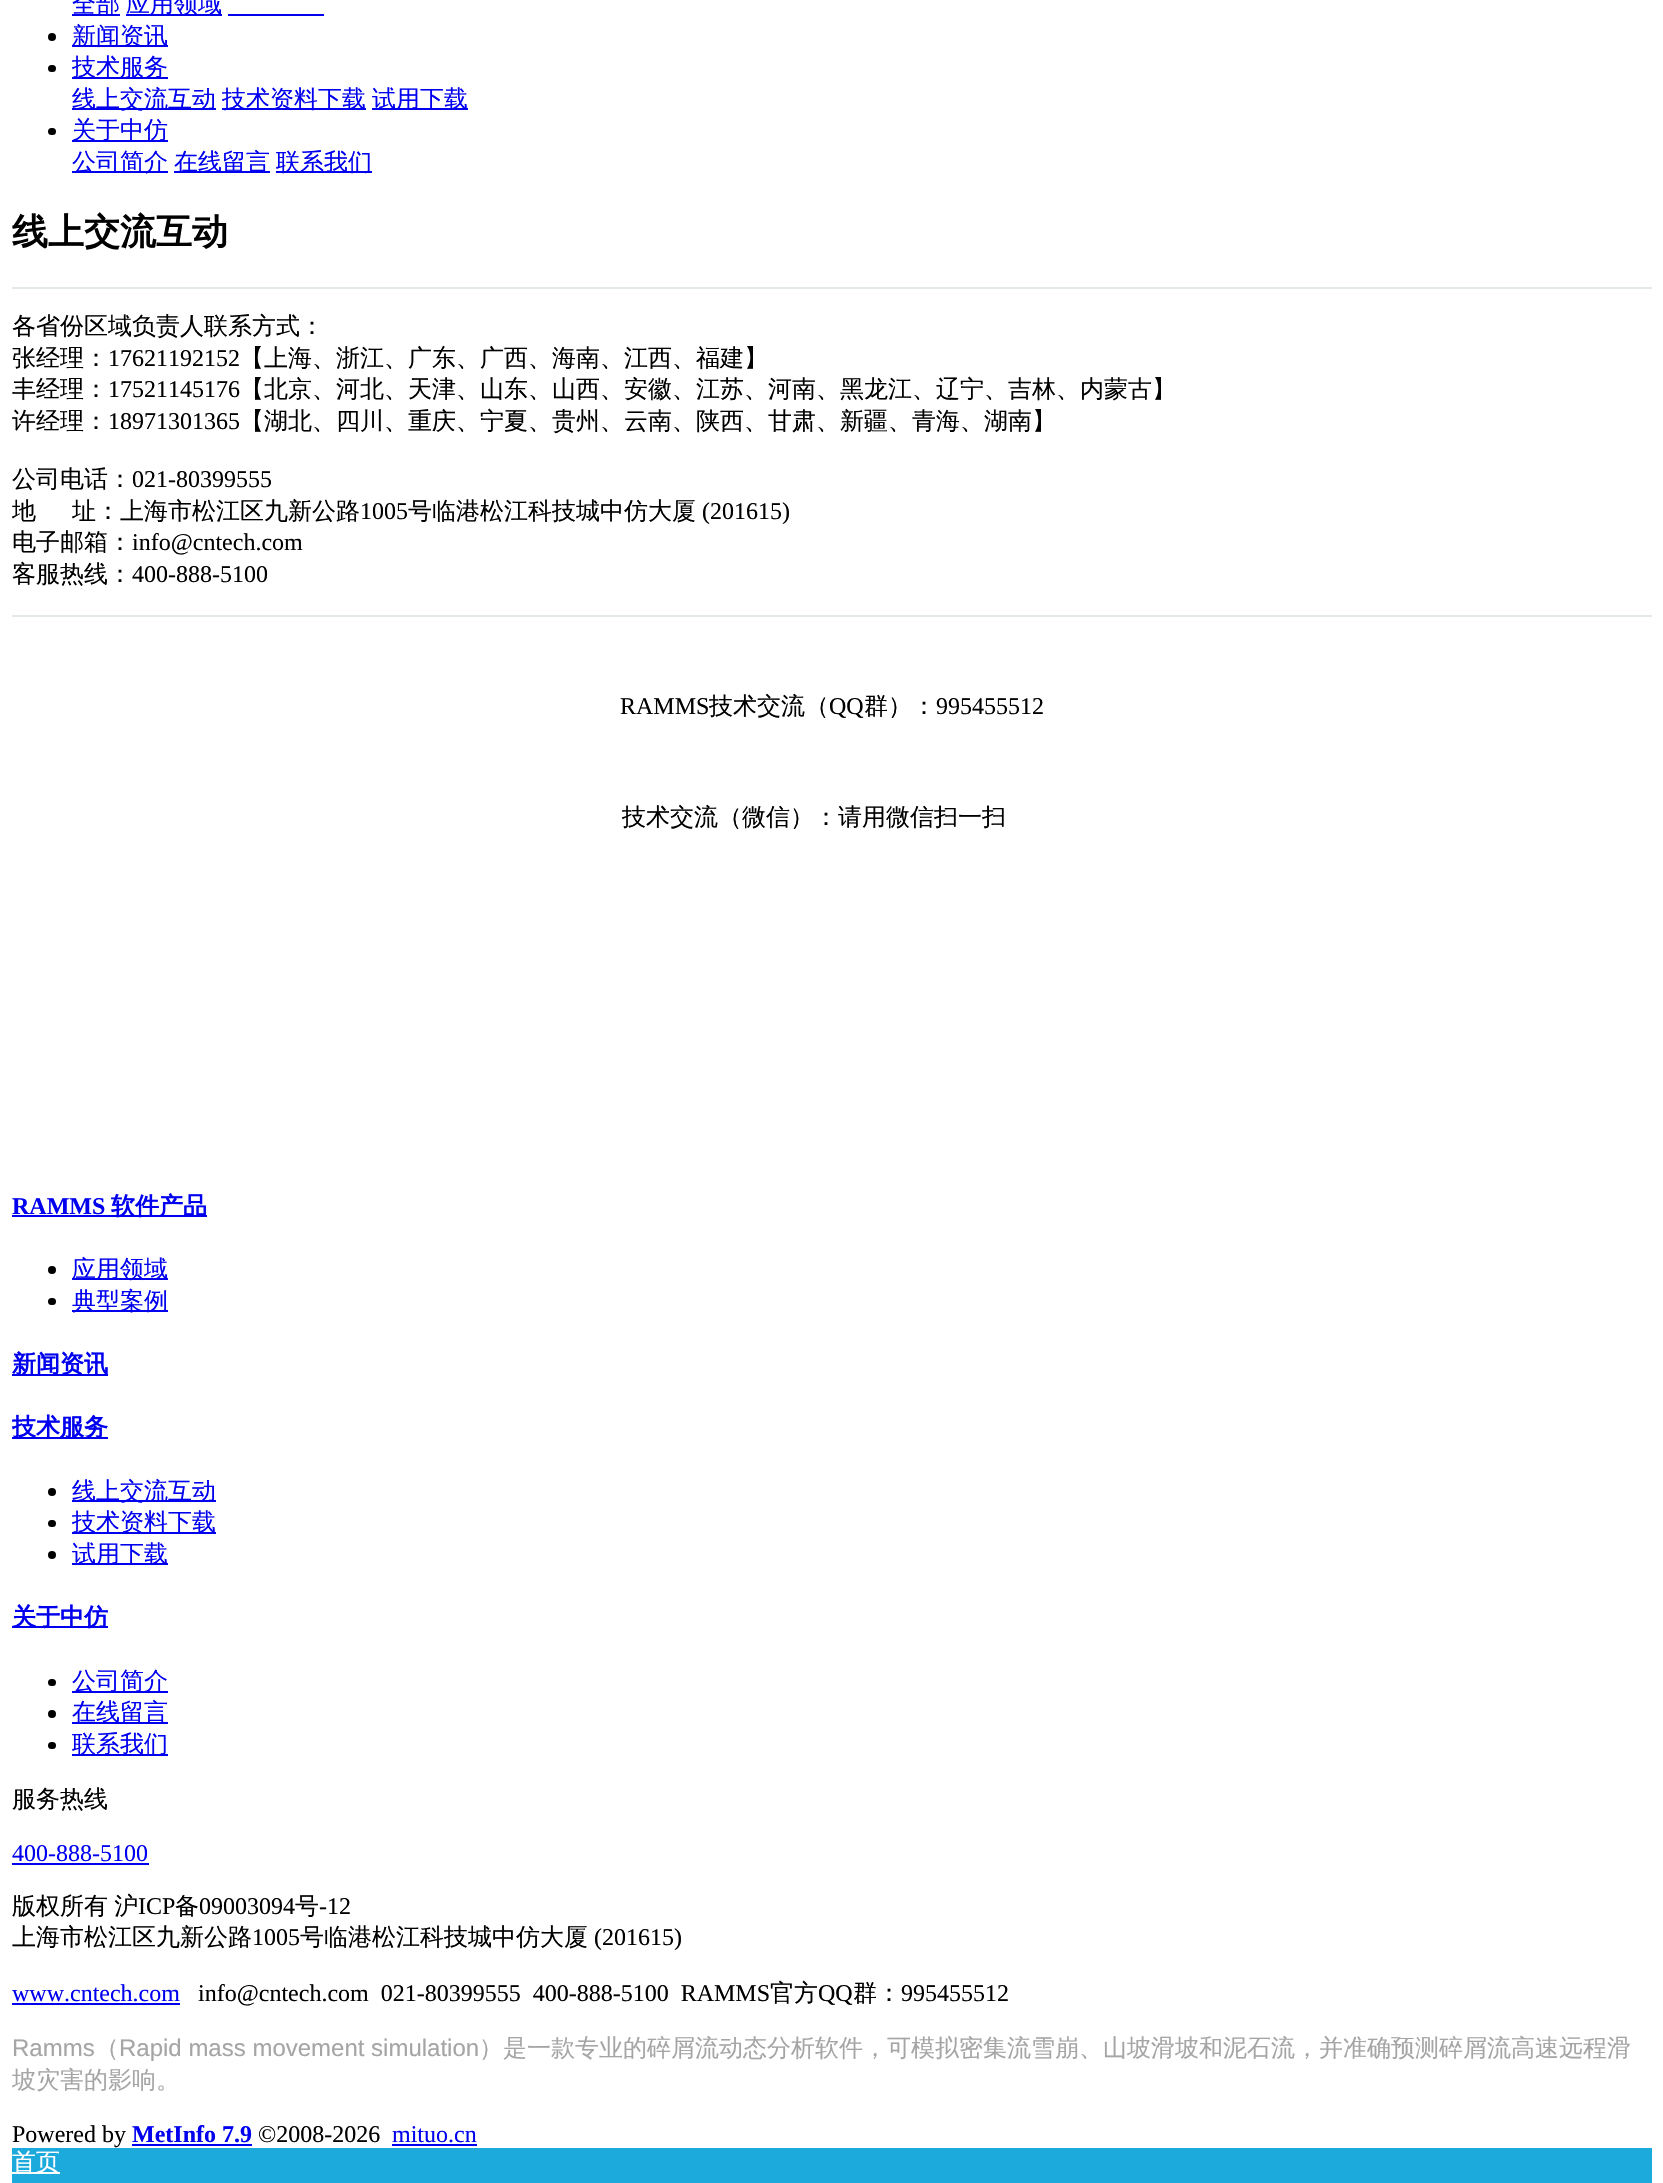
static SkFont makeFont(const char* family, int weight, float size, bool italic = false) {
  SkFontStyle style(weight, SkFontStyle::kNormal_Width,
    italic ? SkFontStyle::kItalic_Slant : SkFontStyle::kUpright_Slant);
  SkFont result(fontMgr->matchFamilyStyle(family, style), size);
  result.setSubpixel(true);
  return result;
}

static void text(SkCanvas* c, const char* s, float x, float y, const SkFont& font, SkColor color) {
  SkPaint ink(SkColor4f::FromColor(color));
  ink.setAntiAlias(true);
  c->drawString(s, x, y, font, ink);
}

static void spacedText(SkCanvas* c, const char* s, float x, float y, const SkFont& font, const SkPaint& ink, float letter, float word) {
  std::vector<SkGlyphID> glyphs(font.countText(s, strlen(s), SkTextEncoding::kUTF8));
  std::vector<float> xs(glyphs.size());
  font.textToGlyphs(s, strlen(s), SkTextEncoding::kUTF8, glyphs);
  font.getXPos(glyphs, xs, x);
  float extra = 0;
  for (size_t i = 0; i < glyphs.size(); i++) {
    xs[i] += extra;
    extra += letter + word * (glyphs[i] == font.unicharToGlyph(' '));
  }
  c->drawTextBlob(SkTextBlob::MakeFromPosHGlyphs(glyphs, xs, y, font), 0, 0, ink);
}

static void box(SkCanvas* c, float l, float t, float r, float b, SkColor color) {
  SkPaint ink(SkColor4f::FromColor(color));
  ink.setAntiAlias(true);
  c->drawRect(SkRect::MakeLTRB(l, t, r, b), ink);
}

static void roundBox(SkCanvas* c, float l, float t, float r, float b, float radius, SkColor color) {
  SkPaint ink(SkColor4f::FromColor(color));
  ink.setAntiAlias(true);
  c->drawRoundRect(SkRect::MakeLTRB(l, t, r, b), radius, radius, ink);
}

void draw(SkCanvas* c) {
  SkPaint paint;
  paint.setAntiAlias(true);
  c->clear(0xffffffff);
  box(c, 72, 14, 120, 16, 0xff0000ee);
  SkFont face1 = makeFont("WenQuanYi Zen Hei", 500, 24);
  text(c, "全部", 72, 12, face1, 0xff0000ee);
  box(c, 126, 14, 222, 16, 0xff0000ee);
  text(c, "应用领域", 126, 12, face1, 0xff0000ee);
  box(c, 228, 14, 324, 16, 0xff0000ee);
  paint.setColor(0xff000000);
  c->drawCircle(52, 37, 4, paint);
  box(c, 72, 45, 168, 47, 0xff0000ee);
  text(c, "新闻资讯", 72, 44, face1, 0xff0000ee);
  roundBox(c, 48, 65, 56, 72, 3.5f, 0xff000000);
  box(c, 72, 77, 168, 79, 0xff0000ee);
  text(c, "技术服务", 72, 75, face1, 0xff0000ee);
  box(c, 72, 108, 216, 110, 0xff0000ee);
  text(c, "线上交流互动", 72, 107, face1, 0xff0000ee);
  box(c, 222, 108, 366, 110, 0xff0000ee);
  text(c, "技术资料下载", 222, 107, face1, 0xff0000ee);
  box(c, 372, 108, 468, 110, 0xff0000ee);
  text(c, "试用下载", 372, 107, face1, 0xff0000ee);
  roundBox(c, 48, 128, 56, 135, 3.5f, 0xff000000);
  box(c, 72, 140, 168, 142, 0xff0000ee);
  text(c, "关于中仿", 72, 138, face1, 0xff0000ee);
  box(c, 72, 171, 168, 173, 0xff0000ee);
  text(c, "公司简介", 72, 170, face1, 0xff0000ee);
  box(c, 174, 171, 270, 173, 0xff0000ee);
  text(c, "在线留言", 174, 170, face1, 0xff0000ee);
  box(c, 276, 171, 372, 173, 0xff0000ee);
  text(c, "联系我们", 276, 170, face1, 0xff0000ee);
  SkFont face2 = makeFont("WenQuanYi Zen Hei", 700, 36);
  text(c, "线上交流互动", 12, 244, face2, 0xff000000);
  box(c, 12, 287, 1652, 289, 0xffe4eaec);
  text(c, "各省份区域负责人联系方式：", 12, 334, face1, 0xff000000);
  text(c, "张经理：", 12, 366, face1, 0xff000000);
  SkFont face3 = makeFont("Liberation Serif", 400, 24);
  text(c, "17621192152", 108, 366, face3, 0xff000000);
  text(c, "【上海、浙江、广东、广西、海南、江西、福建】", 240, 366, face1, 0xff000000);
  text(c, "丰经理：", 12, 397, face1, 0xff000000);
  text(c, "17521145176", 108, 397, face3, 0xff000000);
  text(c, "【北京、河北、天津、山东、山西、安徽、江苏、河南、黑龙江、辽宁、吉林、内蒙古】", 240, 397, face1, 0xff000000);
  text(c, "许经理：", 12, 429, face1, 0xff000000);
  text(c, "18971301365", 108, 429, face3, 0xff000000);
  text(c, "【湖北、四川、重庆、宁夏、贵州、云南、陕西、甘肃、新疆、青海、湖南】", 240, 429, face1, 0xff000000);
  text(c, "公司电话：", 12, 487, face1, 0xff000000);
  text(c, "021-80399555", 132, 487, face3, 0xff000000);
  text(c, "地", 12, 519, face1, 0xff000000);
  text(c, "址：上海市松江区九新公路", 72, 519, face1, 0xff000000);
  text(c, "1005", 360, 519, face3, 0xff000000);
  text(c, "号临港松江科技城中仿大厦", 408, 519, face1, 0xff000000);
  text(c, "(201615)", 702, 519, face3, 0xff000000);
  text(c, "电子邮箱：", 12, 550, face1, 0xff000000);
  text(c, "info@cntech.com", 132, 550, face3, 0xff000000);
  text(c, "客服热线：", 12, 582, face1, 0xff000000);
  text(c, "400-888-5100", 132, 582, face3, 0xff000000);
  box(c, 12, 615, 1652, 617, 0xffe4eaec);
  text(c, "RAMMS", 620, 714, face3, 0xff000000);
  text(c, "技术交流（", 709, 714, face1, 0xff000000);
  text(c, "QQ", 829, 714, face3, 0xff000000);
  text(c, "群）：", 864, 714, face1, 0xff000000);
  text(c, "995455512", 936, 714, face3, 0xff000000);
  text(c, "技术交流（微信）：请用微信扫一扫", 622, 825, face1, 0xff000000);
  SkFont face4 = makeFont("Liberation Serif", 700, 24);
  text(c, "RAMMS", 12, 1214, face4, 0xff0000ee);
  box(c, 12, 1215, 207, 1217, 0xff0000ee);
  SkFont face5 = makeFont("WenQuanYi Zen Hei", 700, 24);
  text(c, "软件产品", 111, 1214, face5, 0xff0000ee);
  c->drawCircle(52, 1270, 4, paint);
  box(c, 72, 1278, 168, 1280, 0xff0000ee);
  text(c, "应用领域", 72, 1277, face1, 0xff0000ee);
  roundBox(c, 48, 1298, 56, 1305, 3.5f, 0xff000000);
  box(c, 72, 1310, 168, 1312, 0xff0000ee);
  text(c, "典型案例", 72, 1309, face1, 0xff0000ee);
  box(c, 12, 1374, 108, 1376, 0xff0000ee);
  text(c, "新闻资讯", 12, 1372, face5, 0xff0000ee);
  box(c, 12, 1437, 108, 1439, 0xff0000ee);
  text(c, "技术服务", 12, 1435, face5, 0xff0000ee);
  c->drawCircle(52, 1492, 4, paint);
  box(c, 72, 1500, 216, 1502, 0xff0000ee);
  text(c, "线上交流互动", 72, 1499, face1, 0xff0000ee);
  roundBox(c, 48, 1520, 56, 1527, 3.5f, 0xff000000);
  box(c, 72, 1532, 216, 1534, 0xff0000ee);
  text(c, "技术资料下载", 72, 1530, face1, 0xff0000ee);
  c->drawCircle(52, 1555, 4, paint);
  box(c, 72, 1563, 168, 1565, 0xff0000ee);
  text(c, "试用下载", 72, 1562, face1, 0xff0000ee);
  box(c, 12, 1626, 108, 1628, 0xff0000ee);
  text(c, "关于中仿", 12, 1625, face5, 0xff0000ee);
  roundBox(c, 48, 1679, 56, 1686, 3.5f, 0xff000000);
  box(c, 72, 1691, 168, 1693, 0xff0000ee);
  text(c, "公司简介", 72, 1689, face1, 0xff0000ee);
  c->drawCircle(52, 1714, 4, paint);
  box(c, 72, 1722, 168, 1724, 0xff0000ee);
  text(c, "在线留言", 72, 1720, face1, 0xff0000ee);
  roundBox(c, 48, 1742, 56, 1749, 3.5f, 0xff000000);
  box(c, 72, 1754, 168, 1756, 0xff0000ee);
  text(c, "联系我们", 72, 1752, face1, 0xff0000ee);
  text(c, "服务热线", 12, 1807, face1, 0xff000000);
  text(c, "400-888-5100", 12, 1861, face3, 0xff0000ee);
  box(c, 12, 1863, 149, 1865, 0xff0000ee);
  spacedText(c, "版权所有 沪", 12, 1914, face1, paint, 0, -1);
  text(c, "ICP", 138, 1914, face3, 0xff000000);
  text(c, "备", 175, 1914, face1, 0xff000000);
  text(c, "09003094", 199, 1914, face3, 0xff000000);
  text(c, "号", 295, 1914, face1, 0xff000000);
  text(c, "-12", 319, 1914, face3, 0xff000000);
  text(c, "上海市松江区九新公路", 12, 1945, face1, 0xff000000);
  text(c, "1005", 252, 1945, face3, 0xff000000);
  text(c, "号临港松江科技城中仿大厦", 300, 1945, face1, 0xff000000);
  text(c, "(201615)", 594, 1945, face3, 0xff000000);
  text(c, "www.cntech.com", 12, 2001, face3, 0xff0000ee);
  box(c, 12, 2003, 180, 2005, 0xff0000ee);
  text(c, "info@cntech.com  021-80399555  400-888-5100  RAMMS", 198, 2001, face3, 0xff000000);
  text(c, "官方", 770, 2001, face1, 0xff000000);
  text(c, "QQ", 818, 2001, face3, 0xff000000);
  text(c, "群：", 853, 2001, face1, 0xff000000);
  text(c, "995455512", 901, 2001, face3, 0xff000000);
  SkFont face6 = makeFont("Liberation Sans", 400, 24);
  text(c, "Ramms", 12, 2056, face6, 0xffa5a5a5);
  text(c, "（", 95, 2056, face1, 0xffa5a5a5);
  text(c, "Rapid mass movement simulation", 119, 2056, face6, 0xffa5a5a5);
  text(c, "）是一款专业的碎屑流动态分析软件，可模拟密集流雪崩、山坡滑坡和泥石流，并准确预测碎屑流高速远程滑", 479, 2056, face1, 0xffa5a5a5);
  text(c, "坡灾害的影响。", 12, 2088, face1, 0xffa5a5a5);
  text(c, "Powered by", 12, 2142, face3, 0xff000000);
  text(c, "MetInfo 7.9", 132, 2142, face4, 0xff0000ee);
  box(c, 132, 2144, 252, 2146, 0xff0000ee);
  text(c, "©2008-2026", 258, 2142, face3, 0xff000000);
  text(c, "mituo.cn", 392, 2142, face3, 0xff0000ee);
  box(c, 392, 2144, 477, 2146, 0xff0000ee);
  box(c, 12, 2148, 1652, 2183, 0xff1baadb);
  box(c, 12, 2172, 60, 2174, 0xffffffff);
  text(c, "首页", 12, 2170, face1, 0xffffffff);
}
